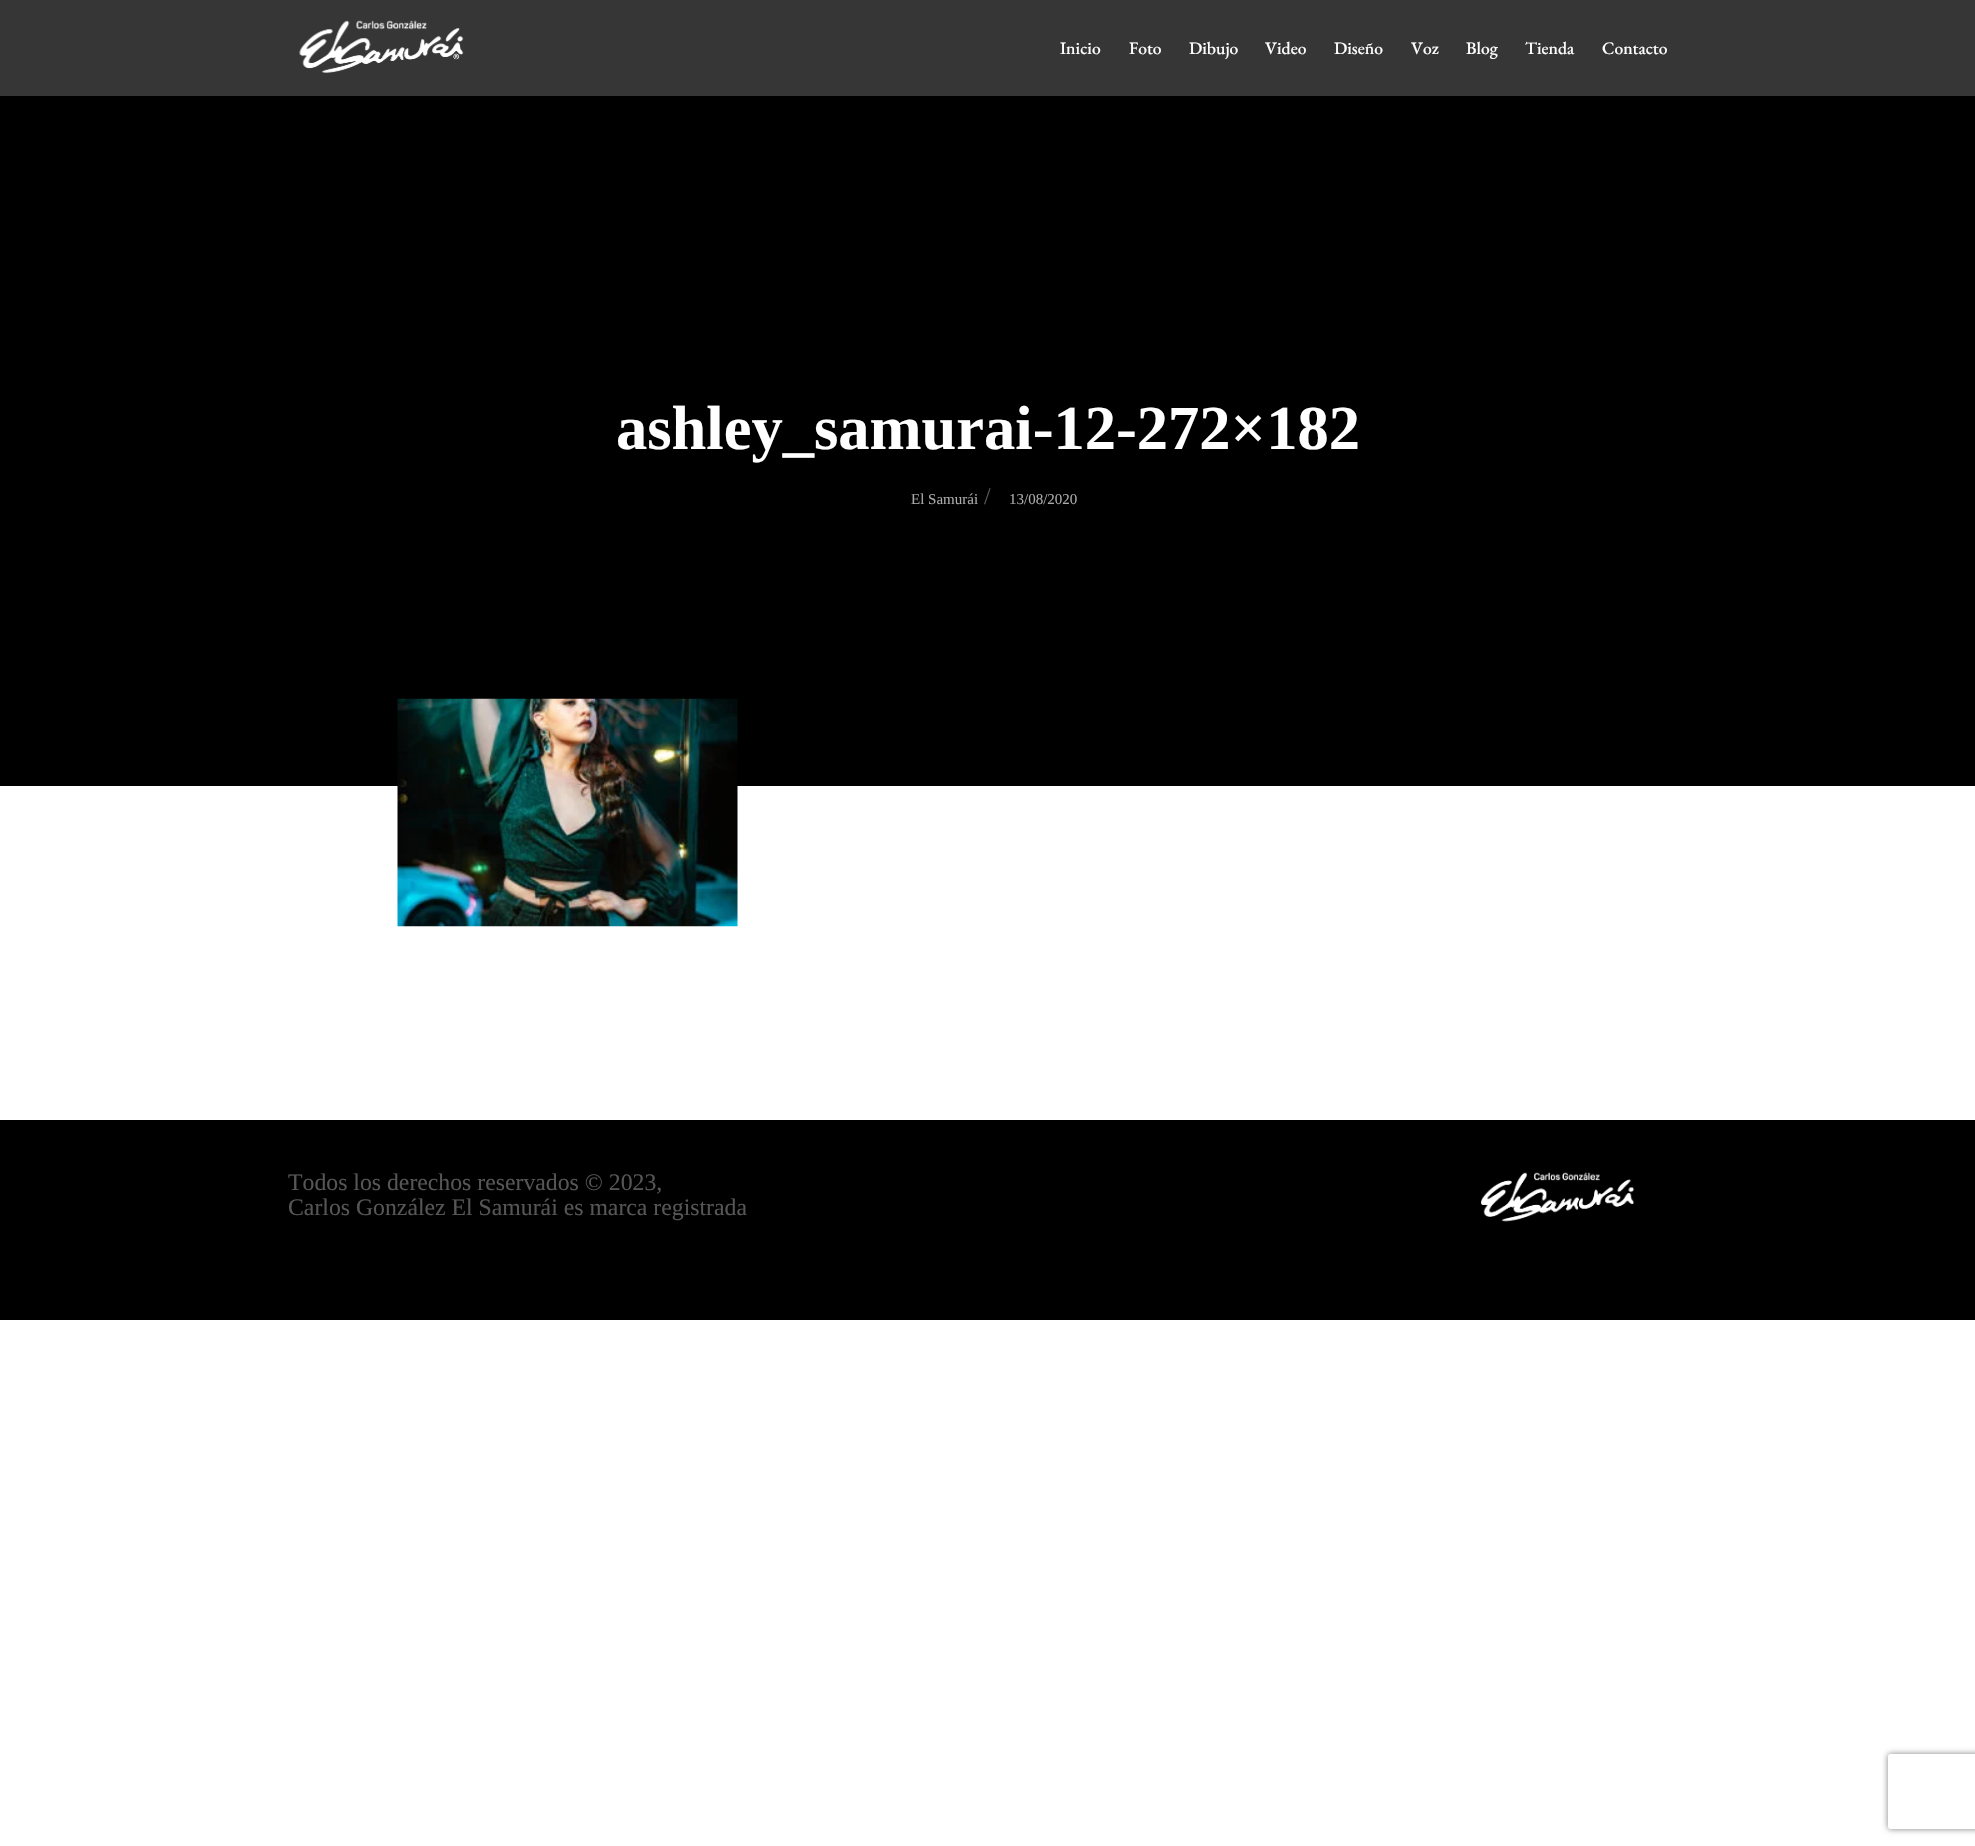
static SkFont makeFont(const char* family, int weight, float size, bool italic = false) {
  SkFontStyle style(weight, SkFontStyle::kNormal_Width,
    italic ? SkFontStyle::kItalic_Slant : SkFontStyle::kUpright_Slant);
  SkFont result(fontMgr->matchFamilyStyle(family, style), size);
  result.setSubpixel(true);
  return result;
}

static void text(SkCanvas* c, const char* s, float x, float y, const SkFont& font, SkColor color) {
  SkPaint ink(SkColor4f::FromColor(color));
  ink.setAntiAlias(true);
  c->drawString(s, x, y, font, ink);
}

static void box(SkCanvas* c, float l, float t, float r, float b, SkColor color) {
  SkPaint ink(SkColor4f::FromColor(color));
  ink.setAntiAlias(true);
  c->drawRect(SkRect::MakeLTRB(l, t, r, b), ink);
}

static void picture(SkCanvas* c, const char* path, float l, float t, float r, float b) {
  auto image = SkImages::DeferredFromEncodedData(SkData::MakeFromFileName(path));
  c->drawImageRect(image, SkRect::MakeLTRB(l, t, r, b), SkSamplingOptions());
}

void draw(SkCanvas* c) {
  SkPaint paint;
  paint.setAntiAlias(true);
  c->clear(0xffffffff);
  box(c, 0, 0, 1975, 96, 0xff363636);
  picture(c, "img_01.png", 299, 20, 464, 73);
  SkFont face1 = makeFont("EB Garamond", 500, 17.5f);
  text(c, "Inicio", 1060, 54, face1, 0xffffffff);
  text(c, "Foto", 1129, 54, face1, 0xffffffff);
  text(c, "Dibujo", 1189, 54, face1, 0xffffffff);
  text(c, "Video", 1265, 54, face1, 0xffffffff);
  text(c, "Diseño", 1334, 54, face1, 0xffffffff);
  text(c, "Voz", 1411, 54, face1, 0xffffffff);
  text(c, "Blog", 1466, 54, face1, 0xffffffff);
  text(c, "Tienda", 1525, 54, face1, 0xffffffff);
  text(c, "Contacto", 1602, 54, face1, 0xffffffff);
  box(c, 0, 96, 1975, 786, 0xff000000);
  SkFont face2 = makeFont("Liberation Serif", 700, 62.5f);
  text(c, "ashley_samurai-12-272×182", 616, 449, face2, 0xffffffff);
  SkFont face3 = makeFont("Liberation Serif", 400, 15);
  text(c, "El Samurái", 911, 504, face3, 0xffaaaaaa);
  SkFont face4 = makeFont("Liberation Serif", 400, 23.75f);
  text(c, "/", 984, 504, face4, 0xff565656);
  text(c, "13/08/2020", 1009, 504, face3, 0xffaaaaaa);
  picture(c, "img_02.png", 397, 698, 738, 927);
  box(c, 0, 1120, 1975, 1320, 0xff000000);
  text(c, "Todos los derechos reservados © 2023,", 288, 1190, face4, 0xff565656);
  text(c, "Carlos González El Samurái es marca registrada", 288, 1215, face4, 0xff565656);
  picture(c, "img_03.png", 1481, 1172, 1635, 1222);
  c->save();
  c->clipPath(SkPathBuilder(SkPathFillType::kEvenOdd).moveTo(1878, 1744).lineTo(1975, 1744).lineTo(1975, 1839).lineTo(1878, 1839).close().moveTo(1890.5f, 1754).lineTo(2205.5f, 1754).cubicTo(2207, 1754, 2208, 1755, 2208, 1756.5f).lineTo(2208, 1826.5f).cubicTo(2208, 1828, 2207, 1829, 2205.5f, 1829).lineTo(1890.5f, 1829).cubicTo(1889, 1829, 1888, 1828, 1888, 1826.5f).lineTo(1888, 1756.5f).cubicTo(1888, 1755, 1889, 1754, 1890.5f, 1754).close().detach(), true);
  paint.setColor(0xff808080);
  paint.setMaskFilter(SkMaskFilter::MakeBlur(kNormal_SkBlurStyle, 3));
  c->drawRoundRect(SkRect::MakeLTRB(1888, 1754, 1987, 1829), 2.5f, 2.5f, paint);
  paint.setMaskFilter(nullptr);
  c->restore();
}
